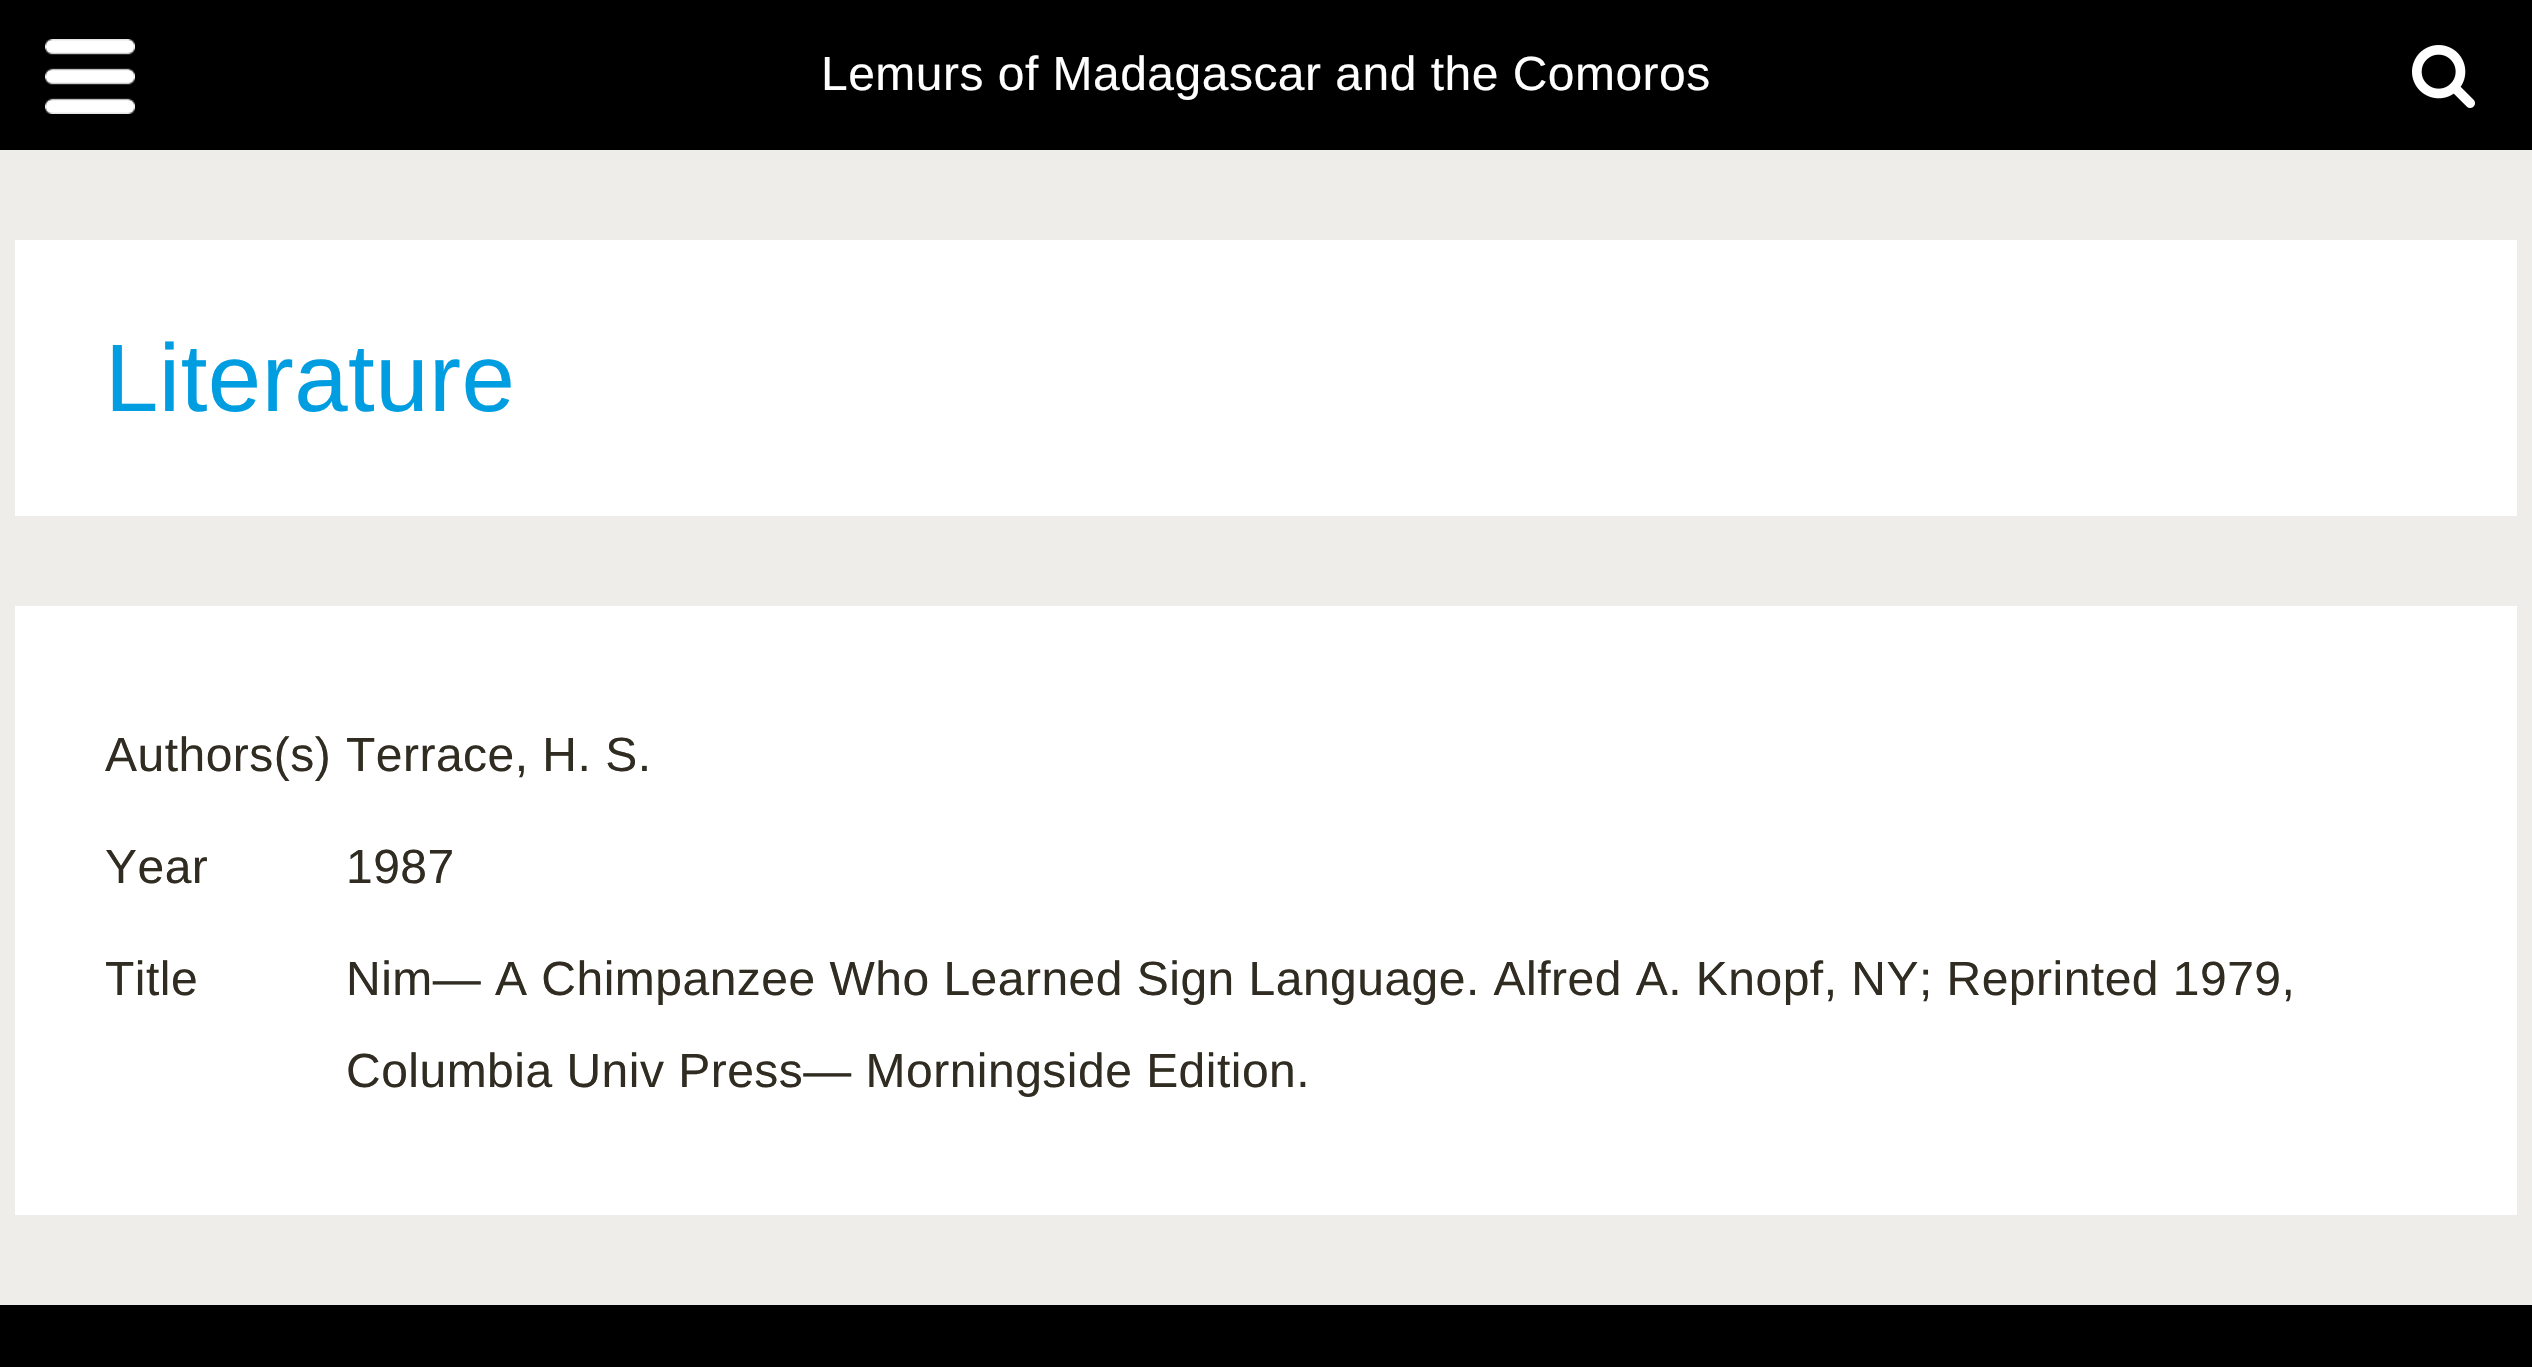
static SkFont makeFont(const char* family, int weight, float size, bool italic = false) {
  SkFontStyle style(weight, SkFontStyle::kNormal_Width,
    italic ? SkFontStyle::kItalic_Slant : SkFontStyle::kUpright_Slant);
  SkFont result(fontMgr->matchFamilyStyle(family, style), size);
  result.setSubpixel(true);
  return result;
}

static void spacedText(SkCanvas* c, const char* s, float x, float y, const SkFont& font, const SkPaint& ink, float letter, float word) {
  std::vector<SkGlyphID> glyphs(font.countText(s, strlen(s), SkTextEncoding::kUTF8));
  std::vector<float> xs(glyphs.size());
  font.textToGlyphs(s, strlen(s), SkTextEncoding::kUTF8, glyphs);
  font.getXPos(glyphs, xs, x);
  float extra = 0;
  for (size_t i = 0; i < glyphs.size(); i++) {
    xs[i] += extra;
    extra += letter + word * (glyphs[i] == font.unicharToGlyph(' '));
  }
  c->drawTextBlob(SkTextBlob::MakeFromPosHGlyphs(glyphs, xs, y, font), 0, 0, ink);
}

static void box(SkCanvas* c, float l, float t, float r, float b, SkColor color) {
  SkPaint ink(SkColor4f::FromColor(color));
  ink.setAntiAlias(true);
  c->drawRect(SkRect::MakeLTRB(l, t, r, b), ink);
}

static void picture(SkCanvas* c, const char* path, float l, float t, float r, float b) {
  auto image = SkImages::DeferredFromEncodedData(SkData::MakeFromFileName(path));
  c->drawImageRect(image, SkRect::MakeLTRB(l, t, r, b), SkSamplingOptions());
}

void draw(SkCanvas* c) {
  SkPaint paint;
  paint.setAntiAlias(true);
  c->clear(0xffeeede9);
  box(c, 0, 0, 2532, 150, 0xff000000);
  picture(c, "img_01.png", 45, 39, 135, 114);
  SkFont face1 = makeFont("Liberation Sans", 400, 48);
  paint.setColor(0xffffffff);
  spacedText(c, "Lemurs of Madagascar and the Comoros", 821, 90, face1, paint, 0.48f, 0);
  picture(c, "img_02.png", 2412, 45, 2475, 108);
  box(c, 15, 240, 2517, 516, 0xffffffff);
  SkFont face2 = makeFont("Liberation Sans", 400, 96);
  paint.setColor(0xff009ee0);
  spacedText(c, "Literature", 105, 411, face2, paint, 0.48f, 0);
  box(c, 15, 606, 2517, 1215, 0xffffffff);
  paint.setColor(0xff302c22);
  spacedText(c, "Authors(s)", 105, 771, face1, paint, 0.48f, 0);
  spacedText(c, "Terrace, H. S.", 346, 771, face1, paint, 0.48f, 0);
  spacedText(c, "Year", 105, 883, face1, paint, 0.48f, 0);
  spacedText(c, "1987", 346, 883, face1, paint, 0.48f, 0);
  spacedText(c, "Title", 105, 995, face1, paint, 0.48f, 0);
  spacedText(c, "Nim— A Chimpanzee Who Learned Sign Language. Alfred A. Knopf, NY; Reprinted 1979,", 346, 995, face1, paint, 0.48f, 0);
  spacedText(c, "Columbia Univ Press— Morningside Edition.", 346, 1087, face1, paint, 0.48f, 0);
  box(c, 0, 1305, 2532, 1367, 0xff000000);
}
